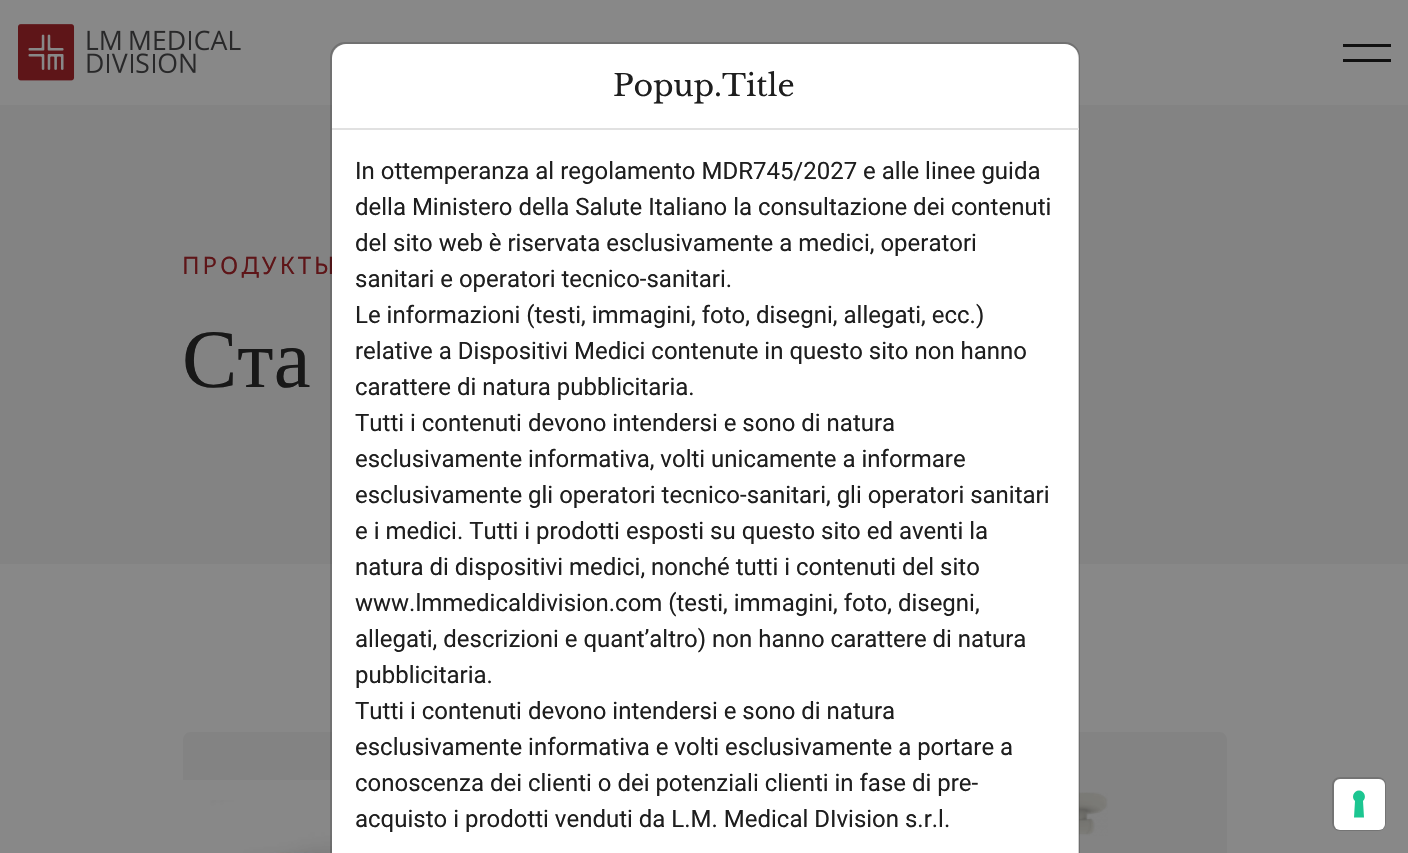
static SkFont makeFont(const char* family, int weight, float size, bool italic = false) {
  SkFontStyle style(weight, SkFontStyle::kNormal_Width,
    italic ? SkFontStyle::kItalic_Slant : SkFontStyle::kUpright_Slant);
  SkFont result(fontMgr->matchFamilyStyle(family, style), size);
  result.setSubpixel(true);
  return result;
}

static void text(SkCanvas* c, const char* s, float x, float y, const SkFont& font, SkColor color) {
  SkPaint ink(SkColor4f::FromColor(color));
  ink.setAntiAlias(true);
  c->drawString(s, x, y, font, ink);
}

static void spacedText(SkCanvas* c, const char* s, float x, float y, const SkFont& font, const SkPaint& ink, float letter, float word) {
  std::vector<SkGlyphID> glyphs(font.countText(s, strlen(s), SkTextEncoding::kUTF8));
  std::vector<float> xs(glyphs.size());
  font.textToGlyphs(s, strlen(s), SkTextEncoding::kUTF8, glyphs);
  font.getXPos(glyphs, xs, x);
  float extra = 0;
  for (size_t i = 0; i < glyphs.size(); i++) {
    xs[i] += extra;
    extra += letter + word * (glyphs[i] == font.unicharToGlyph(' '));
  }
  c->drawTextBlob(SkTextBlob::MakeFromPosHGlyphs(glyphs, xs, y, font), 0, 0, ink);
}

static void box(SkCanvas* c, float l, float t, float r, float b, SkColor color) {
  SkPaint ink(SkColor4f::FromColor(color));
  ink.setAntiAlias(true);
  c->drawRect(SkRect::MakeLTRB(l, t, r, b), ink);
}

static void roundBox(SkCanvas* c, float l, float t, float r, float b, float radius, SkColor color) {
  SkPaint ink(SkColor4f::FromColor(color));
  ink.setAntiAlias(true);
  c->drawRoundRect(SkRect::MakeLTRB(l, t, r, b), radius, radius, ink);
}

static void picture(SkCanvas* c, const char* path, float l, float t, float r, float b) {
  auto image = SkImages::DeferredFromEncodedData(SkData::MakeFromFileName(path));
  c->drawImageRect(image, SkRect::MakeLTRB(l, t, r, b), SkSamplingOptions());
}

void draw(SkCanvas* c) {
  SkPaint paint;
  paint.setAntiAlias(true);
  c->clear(0xff888888);
  picture(c, "img_01.png", 18, 24, 241, 81);
  box(c, 1343, 44, 1391, 47, 0xff111111);
  box(c, 1343, 59, 1391, 62, 0xff111111);
  box(c, 0, 105, 1408, 564, 0xff838383);
  SkFont face1 = makeFont("Noto Sans", 400, 24);
  paint.setColor(0xff5e1518);
  spacedText(c, "ПРОДУКТЫ", 182, 274, face1, paint, 3, 0);
  SkFont face2 = makeFont("Liberation Serif", 400, 83);
  paint.setColor(0xff181818);
  spacedText(c, "Ста", 182, 387, face2, paint, 0, 3);
  paint.setColor(0xff838383);
  c->drawPath(SkPathBuilder().moveTo(191, 732).lineTo(679, 732).cubicTo(683.5f, 732, 687, 735.5f, 687, 740).lineTo(687, 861).lineTo(183, 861).lineTo(183, 740).cubicTo(183, 735.5f, 186.5f, 732, 191, 732).close().detach(), paint);
  picture(c, "img_02.png", 183, 780, 332, 853);
  c->drawPath(SkPathBuilder().moveTo(731, 732).lineTo(1219, 732).cubicTo(1223.5f, 732, 1227, 735.5f, 1227, 740).lineTo(1227, 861).lineTo(723, 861).lineTo(723, 740).cubicTo(723, 735.5f, 726.5f, 732, 731, 732).close().detach(), paint);
  picture(c, "img_03.png", 1079, 792, 1108, 836);
  paint.setColor(0xffffffff);
  c->drawPath(SkPathBuilder().moveTo(346, 44).lineTo(1065, 44).cubicTo(1072.5f, 44, 1079, 50.5f, 1079, 58).lineTo(1079, 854).lineTo(332, 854).lineTo(332, 58).cubicTo(332, 50.5f, 338.5f, 44, 346, 44).close().detach(), paint);
  paint.setStyle(SkPaint::kStroke_Style);
  paint.setStrokeWidth(2);
  paint.setColor(0x33121212);
  c->drawRoundRect(SkRect::MakeLTRB(331, 43, 1079, 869), 14, 14, paint);
  box(c, 332, 128, 1079, 130, 0xffe1e1e1);
  SkFont face3 = makeFont("Libre Baskerville", 400, 30);
  text(c, "Popup.Title", 613, 96, face3, 0xff1e1e1e);
  SkFont face4 = makeFont("Roboto", 400, 24);
  text(c, "In ottemperanza al regolamento MDR745/2027 e alle linee guida", 355, 179, face4, 0xff1e1e1e);
  text(c, "della Ministero della Salute Italiano la consultazione dei contenuti", 355, 215, face4, 0xff1e1e1e);
  text(c, "del sito web è riservata esclusivamente a medici, operatori", 355, 251, face4, 0xff1e1e1e);
  text(c, "sanitari e operatori tecnico-sanitari.", 355, 287, face4, 0xff1e1e1e);
  text(c, "Le informazioni (testi, immagini, foto, disegni, allegati, ecc.)", 355, 323, face4, 0xff1e1e1e);
  text(c, "relative a Dispositivi Medici contenute in questo sito non hanno", 355, 359, face4, 0xff1e1e1e);
  text(c, "carattere di natura pubblicitaria.", 355, 395, face4, 0xff1e1e1e);
  text(c, "Tutti i contenuti devono intendersi e sono di natura", 355, 431, face4, 0xff1e1e1e);
  text(c, "esclusivamente informativa, volti unicamente a informare", 355, 467, face4, 0xff1e1e1e);
  text(c, "esclusivamente gli operatori tecnico-sanitari, gli operatori sanitari", 355, 503, face4, 0xff1e1e1e);
  text(c, "e i medici. Tutti i prodotti esposti su questo sito ed aventi la", 355, 539, face4, 0xff1e1e1e);
  text(c, "natura di dispositivi medici, nonché tutti i contenuti del sito", 355, 575, face4, 0xff1e1e1e);
  text(c, "www.lmmedicaldivision.com (testi, immagini, foto, disegni,", 355, 611, face4, 0xff1e1e1e);
  text(c, "allegati, descrizioni e quant’altro) non hanno carattere di natura", 355, 647, face4, 0xff1e1e1e);
  text(c, "pubblicitaria.", 355, 683, face4, 0xff1e1e1e);
  text(c, "Tutti i contenuti devono intendersi e sono di natura", 355, 719, face4, 0xff1e1e1e);
  text(c, "esclusivamente informativa e volti esclusivamente a portare a", 355, 755, face4, 0xff1e1e1e);
  text(c, "conoscenza dei clienti o dei potenziali clienti in fase di pre-", 355, 791, face4, 0xff1e1e1e);
  text(c, "acquisto i prodotti venduti da L.M. Medical DIvision s.r.l.", 355, 827, face4, 0xff1e1e1e);
  paint.setColor(0xff747474);
  c->drawRoundRect(SkRect::MakeLTRB(1333, 778, 1385, 830), 7, 7, paint);
  roundBox(c, 1334, 779, 1385, 830, 6, 0xffffffff);
  paint.setStyle(SkPaint::kFill_Style);
  paint.setColor(0xff1cc691);
  c->drawPath(SkPathBuilder(SkPathFillType::kEvenOdd).moveTo(1359, 790.5f).cubicTo(1364.5f, 790.5f, 1367, 797.5f, 1363, 801).lineTo(1364, 817.5f).lineTo(1354, 817.5f).lineTo(1355, 801).cubicTo(1351, 797.5f, 1353.5f, 790.5f, 1359, 790.5f).close().detach(), paint);
}
